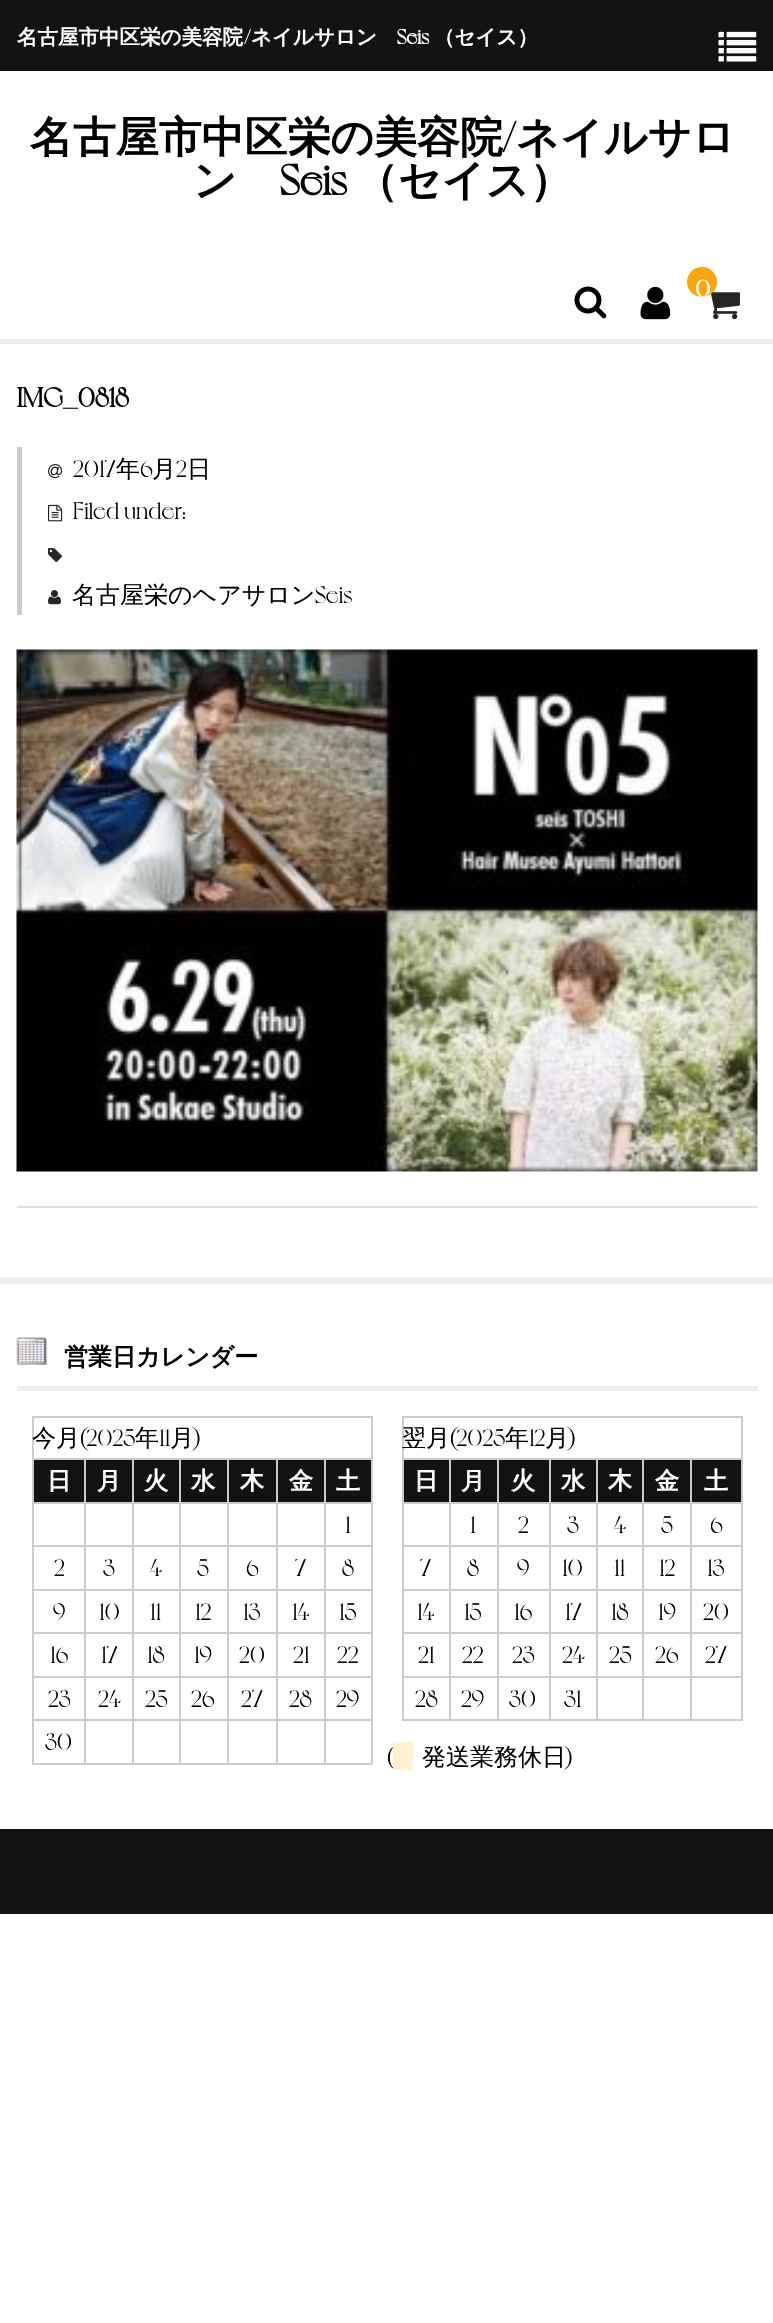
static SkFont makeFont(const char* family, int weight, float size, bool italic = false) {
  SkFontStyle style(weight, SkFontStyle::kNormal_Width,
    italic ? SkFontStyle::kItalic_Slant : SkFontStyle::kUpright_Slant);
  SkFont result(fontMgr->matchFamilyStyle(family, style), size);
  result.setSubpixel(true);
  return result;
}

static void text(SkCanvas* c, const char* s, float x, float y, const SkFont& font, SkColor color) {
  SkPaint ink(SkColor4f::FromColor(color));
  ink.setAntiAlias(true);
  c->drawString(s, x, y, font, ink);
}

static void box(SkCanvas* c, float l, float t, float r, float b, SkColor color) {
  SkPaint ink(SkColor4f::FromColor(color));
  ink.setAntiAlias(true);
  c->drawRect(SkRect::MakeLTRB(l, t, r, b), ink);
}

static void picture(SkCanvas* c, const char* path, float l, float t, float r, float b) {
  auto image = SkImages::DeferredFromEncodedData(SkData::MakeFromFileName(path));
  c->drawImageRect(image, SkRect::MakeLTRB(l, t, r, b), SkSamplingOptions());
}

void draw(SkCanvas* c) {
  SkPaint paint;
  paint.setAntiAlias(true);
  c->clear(0xffffffff);
  box(c, 0, 339, 773, 344, 0xffefefef);
  box(c, 0, 0, 773, 71, 0xff131313);
  SkFont face1 = makeFont("WenQuanYi Zen Hei", 700, 20.5f);
  text(c, "名古屋市中区栄の美容院", 17, 44, face1, 0xffffffff);
  SkFont face2 = makeFont("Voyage", 700, 20.5f);
  text(c, "/", 244, 44, face2, 0xffffffff);
  text(c, "ネイルサロン", 251, 44, face1, 0xffffffff);
  text(c, "Seis", 397, 44, face2, 0xffffffff);
  text(c, "（セイス）", 434, 44, face1, 0xffffffff);
  SkFont face3 = makeFont("WenQuanYi Zen Hei", 700, 42.9f);
  text(c, "名古屋市中区栄の美容院", 30, 152, face3, 0xff000000);
  SkFont face4 = makeFont("Voyage", 700, 42.9f);
  text(c, "/", 502, 152, face4, 0xff000000);
  text(c, "ネイルサロ", 516, 152, face3, 0xff000000);
  text(c, "ン", 193, 195, face3, 0xff000000);
  text(c, "Seis", 280, 195, face4, 0xff000000);
  text(c, "（セイス）", 355, 195, face3, 0xff000000);
  picture(c, "img_01.png", 574, 286, 607, 319);
  picture(c, "img_02.png", 640, 286, 671, 320);
  picture(c, "img_03.png", 711, 291, 740, 320);
  paint.setColor(0xfffba60d);
  c->drawCircle(702, 282, 15, paint);
  SkFont face5 = makeFont("Voyage", 700, 24);
  text(c, "0", 695, 297, face5, 0xffffffff);
  picture(c, "img_04.png", 718, 31, 757, 62);
  SkFont face6 = makeFont("Voyage", 700, 27.5f);
  text(c, "IMG_0818", 17, 407, face6, 0xff000000);
  box(c, 17, 447, 22, 615, 0xffcccaca);
  picture(c, "img_05.png", 48, 464, 63, 479);
  SkFont face7 = makeFont("Voyage", 400, 24);
  text(c, "2017", 73, 477, face7, 0xff000000);
  SkFont face8 = makeFont("WenQuanYi Zen Hei", 500, 24);
  text(c, "年", 116, 477, face8, 0xff000000);
  text(c, "6", 140, 477, face7, 0xff000000);
  text(c, "月", 152, 477, face8, 0xff000000);
  text(c, "2", 176, 477, face7, 0xff000000);
  text(c, "日", 187, 477, face8, 0xff000000);
  picture(c, "img_06.png", 48, 504, 63, 522);
  text(c, "Filed under:", 73, 519, face7, 0xff000000);
  picture(c, "img_07.png", 48, 548, 62, 562);
  picture(c, "img_08.png", 48, 590, 61, 605);
  text(c, "名古屋栄のヘアサロン", 72, 603, face8, 0xff000000);
  text(c, "Seis", 315, 603, face7, 0xff000000);
  picture(c, "img_09.png", 16, 649, 758, 1172);
  box(c, 17, 1206, 758, 1208, 0xffe0e0e0);
  box(c, 0, 1277, 773, 1284, 0xffeeeeee);
  box(c, 17, 1386, 758, 1391, 0xffeeeeee);
  picture(c, "img_10.png", 16, 1337, 47, 1365);
  SkFont face9 = makeFont("WenQuanYi Zen Hei", 700, 24);
  text(c, "営業日カレンダー", 64, 1365, face9, 0xff000000);
  box(c, 32, 1416, 372, 1418, 0xffcccccc);
  box(c, 371, 1416, 373, 1764, 0xffcccccc);
  box(c, 32, 1763, 372, 1765, 0xffcccccc);
  box(c, 32, 1416, 34, 1764, 0xffcccccc);
  text(c, "今月", 32, 1446, face8, 0xff000000);
  text(c, "(2025", 80, 1446, face7, 0xff000000);
  text(c, "年", 135, 1446, face8, 0xff000000);
  text(c, "11", 159, 1446, face7, 0xff000000);
  text(c, "月", 170, 1446, face8, 0xff000000);
  text(c, ")", 194, 1446, face7, 0xff000000);
  box(c, 34, 1460, 84, 1502, 0xff131313);
  box(c, 324, 1458, 372, 1460, 0xffcccccc);
  box(c, 324, 1502, 372, 1504, 0xffcccccc);
  box(c, 324, 1545, 372, 1547, 0xffcccccc);
  box(c, 324, 1589, 372, 1591, 0xffcccccc);
  box(c, 324, 1632, 372, 1634, 0xffcccccc);
  box(c, 324, 1676, 372, 1678, 0xffcccccc);
  box(c, 324, 1719, 372, 1721, 0xffcccccc);
  box(c, 324, 1719, 326, 1764, 0xffcccccc);
  box(c, 276, 1719, 326, 1721, 0xffcccccc);
  box(c, 324, 1676, 326, 1721, 0xffcccccc);
  box(c, 276, 1676, 326, 1678, 0xffcccccc);
  box(c, 324, 1632, 326, 1677, 0xffcccccc);
  box(c, 276, 1632, 326, 1634, 0xffcccccc);
  box(c, 324, 1589, 326, 1634, 0xffcccccc);
  box(c, 276, 1589, 326, 1591, 0xffcccccc);
  box(c, 324, 1545, 326, 1590, 0xffcccccc);
  box(c, 276, 1545, 326, 1547, 0xffcccccc);
  box(c, 324, 1502, 326, 1547, 0xffcccccc);
  box(c, 276, 1502, 326, 1504, 0xffcccccc);
  box(c, 324, 1458, 326, 1503, 0xffcccccc);
  box(c, 276, 1458, 326, 1460, 0xffcccccc);
  box(c, 276, 1719, 278, 1764, 0xffcccccc);
  box(c, 227, 1719, 278, 1721, 0xffcccccc);
  box(c, 276, 1676, 278, 1721, 0xffcccccc);
  box(c, 227, 1676, 278, 1678, 0xffcccccc);
  box(c, 276, 1632, 278, 1677, 0xffcccccc);
  box(c, 227, 1632, 278, 1634, 0xffcccccc);
  box(c, 276, 1589, 278, 1634, 0xffcccccc);
  box(c, 227, 1589, 278, 1591, 0xffcccccc);
  box(c, 276, 1545, 278, 1590, 0xffcccccc);
  box(c, 227, 1545, 278, 1547, 0xffcccccc);
  box(c, 276, 1502, 278, 1547, 0xffcccccc);
  box(c, 227, 1502, 278, 1504, 0xffcccccc);
  box(c, 276, 1458, 278, 1503, 0xffcccccc);
  box(c, 227, 1458, 278, 1460, 0xffcccccc);
  box(c, 227, 1719, 229, 1764, 0xffcccccc);
  box(c, 179, 1719, 228, 1721, 0xffcccccc);
  box(c, 227, 1676, 229, 1721, 0xffcccccc);
  box(c, 179, 1676, 228, 1678, 0xffcccccc);
  box(c, 227, 1632, 229, 1677, 0xffcccccc);
  box(c, 179, 1632, 228, 1634, 0xffcccccc);
  box(c, 227, 1589, 229, 1634, 0xffcccccc);
  box(c, 179, 1589, 228, 1591, 0xffcccccc);
  box(c, 227, 1545, 229, 1590, 0xffcccccc);
  box(c, 179, 1545, 228, 1547, 0xffcccccc);
  box(c, 227, 1502, 229, 1547, 0xffcccccc);
  box(c, 179, 1502, 228, 1504, 0xffcccccc);
  box(c, 227, 1458, 229, 1503, 0xffcccccc);
  box(c, 179, 1458, 228, 1460, 0xffcccccc);
  box(c, 179, 1719, 181, 1764, 0xffcccccc);
  box(c, 132, 1719, 180, 1721, 0xffcccccc);
  box(c, 179, 1676, 181, 1721, 0xffcccccc);
  box(c, 132, 1676, 180, 1678, 0xffcccccc);
  box(c, 179, 1632, 181, 1677, 0xffcccccc);
  box(c, 132, 1632, 180, 1634, 0xffcccccc);
  box(c, 179, 1589, 181, 1634, 0xffcccccc);
  box(c, 132, 1589, 180, 1591, 0xffcccccc);
  box(c, 179, 1545, 181, 1590, 0xffcccccc);
  box(c, 132, 1545, 180, 1547, 0xffcccccc);
  box(c, 179, 1502, 181, 1547, 0xffcccccc);
  box(c, 132, 1502, 180, 1504, 0xffcccccc);
  box(c, 179, 1458, 181, 1503, 0xffcccccc);
  box(c, 132, 1458, 180, 1460, 0xffcccccc);
  box(c, 132, 1719, 134, 1764, 0xffcccccc);
  box(c, 84, 1719, 134, 1721, 0xffcccccc);
  box(c, 132, 1676, 134, 1721, 0xffcccccc);
  box(c, 84, 1676, 134, 1678, 0xffcccccc);
  box(c, 132, 1632, 134, 1677, 0xffcccccc);
  box(c, 84, 1632, 134, 1634, 0xffcccccc);
  box(c, 132, 1589, 134, 1634, 0xffcccccc);
  box(c, 84, 1589, 134, 1591, 0xffcccccc);
  box(c, 132, 1545, 134, 1590, 0xffcccccc);
  box(c, 84, 1545, 134, 1547, 0xffcccccc);
  box(c, 132, 1502, 134, 1547, 0xffcccccc);
  box(c, 84, 1502, 134, 1504, 0xffcccccc);
  box(c, 132, 1458, 134, 1503, 0xffcccccc);
  box(c, 84, 1458, 134, 1460, 0xffcccccc);
  box(c, 84, 1719, 86, 1764, 0xffcccccc);
  box(c, 32, 1719, 86, 1721, 0xffcccccc);
  box(c, 84, 1676, 86, 1721, 0xffcccccc);
  box(c, 32, 1676, 86, 1678, 0xffcccccc);
  box(c, 84, 1632, 86, 1677, 0xffcccccc);
  box(c, 32, 1632, 86, 1634, 0xffcccccc);
  box(c, 84, 1589, 86, 1634, 0xffcccccc);
  box(c, 32, 1589, 86, 1591, 0xffcccccc);
  box(c, 84, 1545, 86, 1590, 0xffcccccc);
  box(c, 32, 1545, 86, 1547, 0xffcccccc);
  box(c, 84, 1502, 86, 1547, 0xffcccccc);
  box(c, 32, 1502, 86, 1504, 0xffcccccc);
  box(c, 84, 1458, 86, 1503, 0xffcccccc);
  box(c, 32, 1458, 86, 1460, 0xffcccccc);
  text(c, "日", 47, 1489, face9, 0xffffffff);
  box(c, 86, 1460, 132, 1502, 0xff131313);
  text(c, "月", 97, 1489, face9, 0xffffffff);
  box(c, 134, 1460, 179, 1502, 0xff131313);
  text(c, "火", 144, 1489, face9, 0xffffffff);
  box(c, 181, 1460, 227, 1502, 0xff131313);
  text(c, "水", 191, 1489, face9, 0xffffffff);
  box(c, 229, 1460, 276, 1502, 0xff131313);
  text(c, "木", 240, 1489, face9, 0xffffffff);
  box(c, 278, 1460, 324, 1502, 0xff131313);
  text(c, "金", 289, 1489, face9, 0xffffffff);
  box(c, 326, 1460, 371, 1502, 0xff131313);
  text(c, "土", 336, 1489, face9, 0xffffffff);
  text(c, "1", 345, 1533, face7, 0xff000000);
  text(c, "2", 54, 1576, face7, 0xff000000);
  text(c, "3", 103, 1576, face7, 0xff000000);
  text(c, "4", 150, 1576, face7, 0xff000000);
  text(c, "5", 197, 1576, face7, 0xff000000);
  text(c, "6", 246, 1576, face7, 0xff000000);
  text(c, "7", 295, 1576, face7, 0xff000000);
  text(c, "8", 342, 1576, face7, 0xff000000);
  text(c, "9", 53, 1620, face7, 0xff000000);
  text(c, "10", 99, 1620, face7, 0xff000000);
  text(c, "11", 150, 1620, face7, 0xff000000);
  text(c, "12", 195, 1620, face7, 0xff000000);
  text(c, "13", 243, 1620, face7, 0xff000000);
  text(c, "14", 292, 1620, face7, 0xff000000);
  text(c, "15", 339, 1620, face7, 0xff000000);
  text(c, "16", 50, 1663, face7, 0xff000000);
  text(c, "17", 101, 1663, face7, 0xff000000);
  text(c, "18", 147, 1663, face7, 0xff000000);
  text(c, "19", 194, 1663, face7, 0xff000000);
  text(c, "20", 239, 1663, face7, 0xff000000);
  text(c, "21", 293, 1663, face7, 0xff000000);
  text(c, "22", 337, 1663, face7, 0xff000000);
  text(c, "23", 48, 1707, face7, 0xff000000);
  text(c, "24", 98, 1707, face7, 0xff000000);
  text(c, "25", 145, 1707, face7, 0xff000000);
  text(c, "26", 191, 1707, face7, 0xff000000);
  text(c, "27", 241, 1707, face7, 0xff000000);
  text(c, "28", 289, 1707, face7, 0xff000000);
  text(c, "29", 336, 1707, face7, 0xff000000);
  text(c, "30", 45, 1750, face7, 0xff000000);
  box(c, 402, 1416, 743, 1418, 0xffcccccc);
  box(c, 741, 1416, 743, 1721, 0xffcccccc);
  box(c, 402, 1719, 743, 1721, 0xffcccccc);
  box(c, 402, 1416, 404, 1721, 0xffcccccc);
  text(c, "翌月", 402, 1446, face8, 0xff000000);
  text(c, "(2025", 450, 1446, face7, 0xff000000);
  text(c, "年", 505, 1446, face8, 0xff000000);
  text(c, "12", 529, 1446, face7, 0xff000000);
  text(c, "月", 545, 1446, face8, 0xff000000);
  text(c, ")", 569, 1446, face7, 0xff000000);
  box(c, 404, 1460, 449, 1502, 0xff131313);
  box(c, 690, 1458, 743, 1460, 0xffcccccc);
  box(c, 690, 1502, 743, 1504, 0xffcccccc);
  box(c, 690, 1545, 743, 1547, 0xffcccccc);
  box(c, 690, 1589, 743, 1591, 0xffcccccc);
  box(c, 690, 1632, 743, 1634, 0xffcccccc);
  box(c, 690, 1676, 743, 1678, 0xffcccccc);
  box(c, 690, 1676, 692, 1721, 0xffcccccc);
  box(c, 642, 1676, 692, 1678, 0xffcccccc);
  box(c, 690, 1632, 692, 1677, 0xffcccccc);
  box(c, 642, 1632, 692, 1634, 0xffcccccc);
  box(c, 690, 1589, 692, 1634, 0xffcccccc);
  box(c, 642, 1589, 692, 1591, 0xffcccccc);
  box(c, 690, 1545, 692, 1590, 0xffcccccc);
  box(c, 642, 1545, 692, 1547, 0xffcccccc);
  box(c, 690, 1502, 692, 1547, 0xffcccccc);
  box(c, 642, 1502, 692, 1504, 0xffcccccc);
  box(c, 690, 1458, 692, 1503, 0xffcccccc);
  box(c, 642, 1458, 692, 1460, 0xffcccccc);
  box(c, 642, 1676, 644, 1721, 0xffcccccc);
  box(c, 596, 1676, 644, 1678, 0xffcccccc);
  box(c, 642, 1632, 644, 1677, 0xffcccccc);
  box(c, 596, 1632, 644, 1634, 0xffcccccc);
  box(c, 642, 1589, 644, 1634, 0xffcccccc);
  box(c, 596, 1589, 644, 1591, 0xffcccccc);
  box(c, 642, 1545, 644, 1590, 0xffcccccc);
  box(c, 596, 1545, 644, 1547, 0xffcccccc);
  box(c, 642, 1502, 644, 1547, 0xffcccccc);
  box(c, 596, 1502, 644, 1504, 0xffcccccc);
  box(c, 642, 1458, 644, 1503, 0xffcccccc);
  box(c, 596, 1458, 644, 1460, 0xffcccccc);
  box(c, 596, 1676, 598, 1721, 0xffcccccc);
  box(c, 549, 1676, 597, 1678, 0xffcccccc);
  box(c, 596, 1632, 598, 1677, 0xffcccccc);
  box(c, 549, 1632, 597, 1634, 0xffcccccc);
  box(c, 596, 1589, 598, 1634, 0xffcccccc);
  box(c, 549, 1589, 597, 1591, 0xffcccccc);
  box(c, 596, 1545, 598, 1590, 0xffcccccc);
  box(c, 549, 1545, 597, 1547, 0xffcccccc);
  box(c, 596, 1502, 598, 1547, 0xffcccccc);
  box(c, 549, 1502, 597, 1504, 0xffcccccc);
  box(c, 596, 1458, 598, 1503, 0xffcccccc);
  box(c, 549, 1458, 597, 1460, 0xffcccccc);
  box(c, 549, 1676, 551, 1721, 0xffcccccc);
  box(c, 497, 1676, 551, 1678, 0xffcccccc);
  box(c, 549, 1632, 551, 1677, 0xffcccccc);
  box(c, 497, 1632, 551, 1634, 0xffcccccc);
  box(c, 549, 1589, 551, 1634, 0xffcccccc);
  box(c, 497, 1589, 551, 1591, 0xffcccccc);
  box(c, 549, 1545, 551, 1590, 0xffcccccc);
  box(c, 497, 1545, 551, 1547, 0xffcccccc);
  box(c, 549, 1502, 551, 1547, 0xffcccccc);
  box(c, 497, 1502, 551, 1504, 0xffcccccc);
  box(c, 549, 1458, 551, 1503, 0xffcccccc);
  box(c, 497, 1458, 551, 1460, 0xffcccccc);
  box(c, 497, 1676, 499, 1721, 0xffcccccc);
  box(c, 449, 1676, 498, 1678, 0xffcccccc);
  box(c, 497, 1632, 499, 1677, 0xffcccccc);
  box(c, 449, 1632, 498, 1634, 0xffcccccc);
  box(c, 497, 1589, 499, 1634, 0xffcccccc);
  box(c, 449, 1589, 498, 1591, 0xffcccccc);
  box(c, 497, 1545, 499, 1590, 0xffcccccc);
  box(c, 449, 1545, 498, 1547, 0xffcccccc);
  box(c, 497, 1502, 499, 1547, 0xffcccccc);
  box(c, 449, 1502, 498, 1504, 0xffcccccc);
  box(c, 497, 1458, 499, 1503, 0xffcccccc);
  box(c, 449, 1458, 498, 1460, 0xffcccccc);
  box(c, 449, 1676, 451, 1721, 0xffcccccc);
  box(c, 402, 1676, 450, 1678, 0xffcccccc);
  box(c, 449, 1632, 451, 1677, 0xffcccccc);
  box(c, 402, 1632, 450, 1634, 0xffcccccc);
  box(c, 449, 1589, 451, 1634, 0xffcccccc);
  box(c, 402, 1589, 450, 1591, 0xffcccccc);
  box(c, 449, 1545, 451, 1590, 0xffcccccc);
  box(c, 402, 1545, 450, 1547, 0xffcccccc);
  box(c, 449, 1502, 451, 1547, 0xffcccccc);
  box(c, 402, 1502, 450, 1504, 0xffcccccc);
  box(c, 449, 1458, 451, 1503, 0xffcccccc);
  box(c, 402, 1458, 450, 1460, 0xffcccccc);
  text(c, "日", 414, 1489, face9, 0xffffffff);
  box(c, 451, 1460, 497, 1502, 0xff131313);
  text(c, "月", 461, 1489, face9, 0xffffffff);
  box(c, 499, 1460, 549, 1502, 0xff131313);
  text(c, "火", 511, 1489, face9, 0xffffffff);
  box(c, 551, 1460, 596, 1502, 0xff131313);
  text(c, "水", 561, 1489, face9, 0xffffffff);
  box(c, 598, 1460, 642, 1502, 0xff131313);
  text(c, "木", 608, 1489, face9, 0xffffffff);
  box(c, 644, 1460, 690, 1502, 0xff131313);
  text(c, "金", 655, 1489, face9, 0xffffffff);
  box(c, 692, 1460, 741, 1502, 0xff131313);
  text(c, "土", 704, 1489, face9, 0xffffffff);
  text(c, "1", 470, 1533, face7, 0xff000000);
  text(c, "2", 518, 1533, face7, 0xff000000);
  text(c, "3", 567, 1533, face7, 0xff000000);
  text(c, "4", 614, 1533, face7, 0xff000000);
  text(c, "5", 661, 1533, face7, 0xff000000);
  text(c, "6", 710, 1533, face7, 0xff000000);
  text(c, "7", 420, 1576, face7, 0xff000000);
  text(c, "8", 467, 1576, face7, 0xff000000);
  text(c, "9", 517, 1576, face7, 0xff000000);
  text(c, "10", 562, 1576, face7, 0xff000000);
  text(c, "11", 614, 1576, face7, 0xff000000);
  text(c, "12", 659, 1576, face7, 0xff000000);
  text(c, "13", 707, 1576, face7, 0xff000000);
  text(c, "14", 417, 1620, face7, 0xff000000);
  text(c, "15", 464, 1620, face7, 0xff000000);
  text(c, "16", 514, 1620, face7, 0xff000000);
  text(c, "17", 565, 1620, face7, 0xff000000);
  text(c, "18", 611, 1620, face7, 0xff000000);
  text(c, "19", 658, 1620, face7, 0xff000000);
  text(c, "20", 703, 1620, face7, 0xff000000);
  text(c, "21", 418, 1663, face7, 0xff000000);
  text(c, "22", 462, 1663, face7, 0xff000000);
  text(c, "23", 512, 1663, face7, 0xff000000);
  text(c, "24", 562, 1663, face7, 0xff000000);
  text(c, "25", 609, 1663, face7, 0xff000000);
  text(c, "26", 655, 1663, face7, 0xff000000);
  text(c, "27", 705, 1663, face7, 0xff000000);
  text(c, "28", 415, 1707, face7, 0xff000000);
  text(c, "29", 461, 1707, face7, 0xff000000);
  text(c, "30", 509, 1707, face7, 0xff000000);
  text(c, "31", 564, 1707, face7, 0xff000000);
  text(c, "(", 387, 1765, face7, 0xff000000);
  box(c, 393, 1742, 413, 1770, 0xfffff0d1);
  text(c, "発送業務休日", 422, 1765, face8, 0xff000000);
  text(c, ")", 566, 1765, face7, 0xff000000);
  box(c, 0, 1829, 773, 1914, 0xff131313);
}
